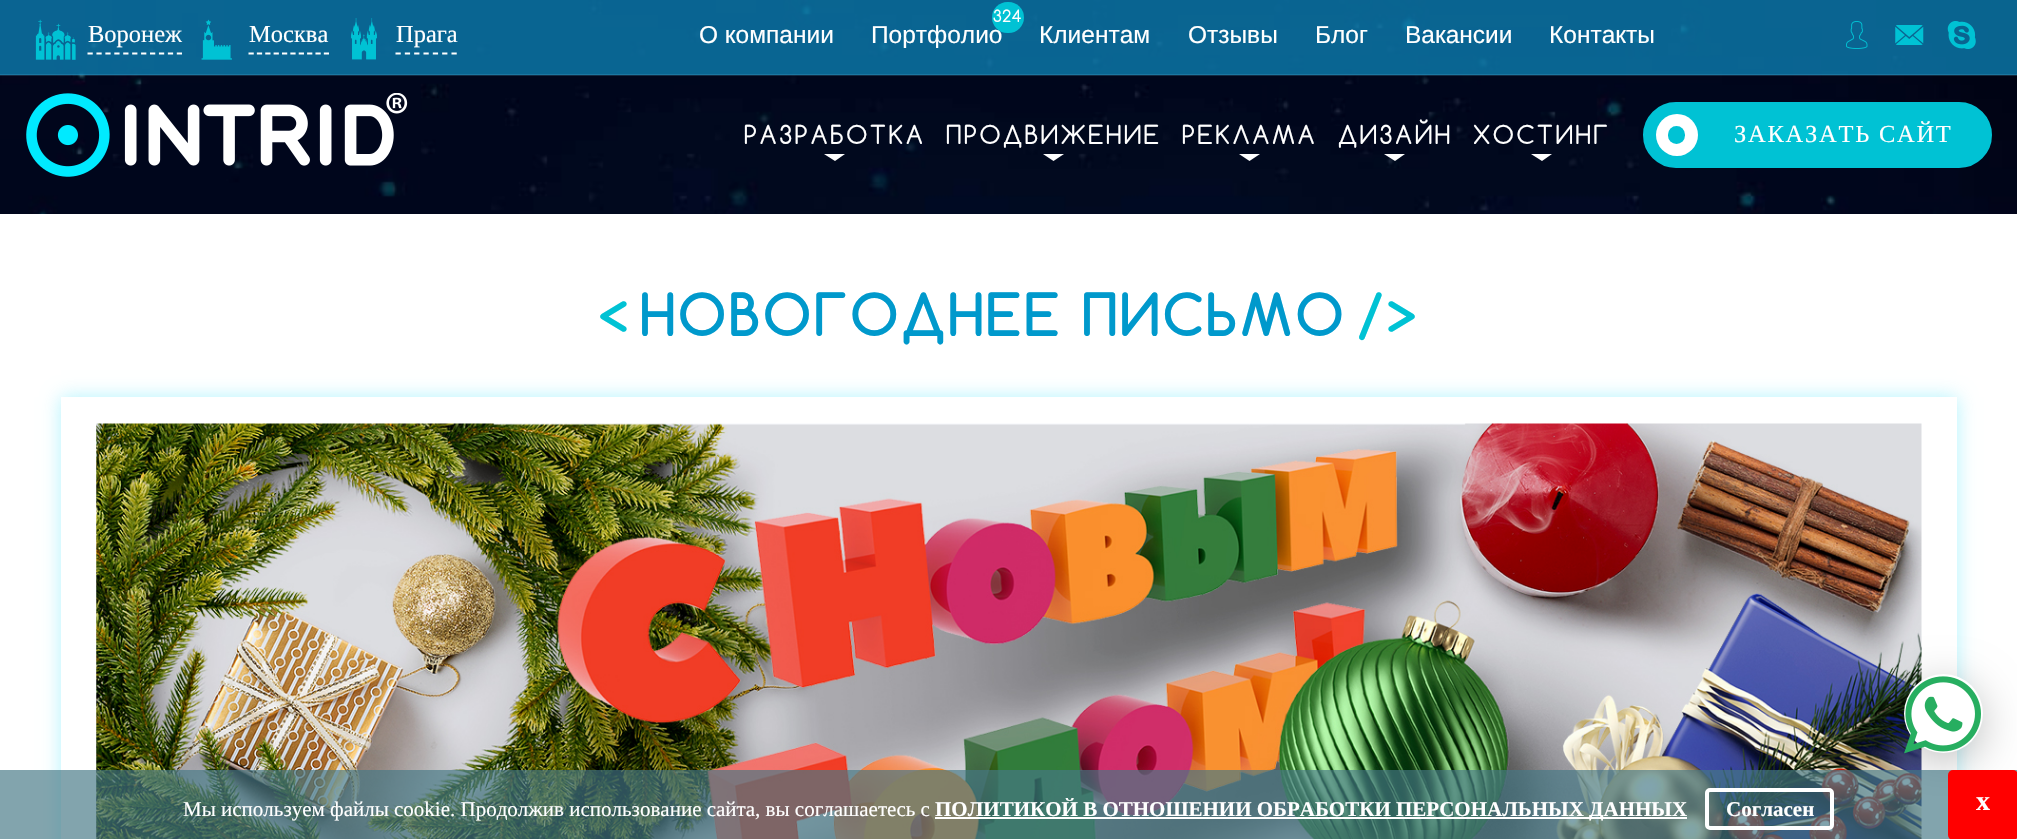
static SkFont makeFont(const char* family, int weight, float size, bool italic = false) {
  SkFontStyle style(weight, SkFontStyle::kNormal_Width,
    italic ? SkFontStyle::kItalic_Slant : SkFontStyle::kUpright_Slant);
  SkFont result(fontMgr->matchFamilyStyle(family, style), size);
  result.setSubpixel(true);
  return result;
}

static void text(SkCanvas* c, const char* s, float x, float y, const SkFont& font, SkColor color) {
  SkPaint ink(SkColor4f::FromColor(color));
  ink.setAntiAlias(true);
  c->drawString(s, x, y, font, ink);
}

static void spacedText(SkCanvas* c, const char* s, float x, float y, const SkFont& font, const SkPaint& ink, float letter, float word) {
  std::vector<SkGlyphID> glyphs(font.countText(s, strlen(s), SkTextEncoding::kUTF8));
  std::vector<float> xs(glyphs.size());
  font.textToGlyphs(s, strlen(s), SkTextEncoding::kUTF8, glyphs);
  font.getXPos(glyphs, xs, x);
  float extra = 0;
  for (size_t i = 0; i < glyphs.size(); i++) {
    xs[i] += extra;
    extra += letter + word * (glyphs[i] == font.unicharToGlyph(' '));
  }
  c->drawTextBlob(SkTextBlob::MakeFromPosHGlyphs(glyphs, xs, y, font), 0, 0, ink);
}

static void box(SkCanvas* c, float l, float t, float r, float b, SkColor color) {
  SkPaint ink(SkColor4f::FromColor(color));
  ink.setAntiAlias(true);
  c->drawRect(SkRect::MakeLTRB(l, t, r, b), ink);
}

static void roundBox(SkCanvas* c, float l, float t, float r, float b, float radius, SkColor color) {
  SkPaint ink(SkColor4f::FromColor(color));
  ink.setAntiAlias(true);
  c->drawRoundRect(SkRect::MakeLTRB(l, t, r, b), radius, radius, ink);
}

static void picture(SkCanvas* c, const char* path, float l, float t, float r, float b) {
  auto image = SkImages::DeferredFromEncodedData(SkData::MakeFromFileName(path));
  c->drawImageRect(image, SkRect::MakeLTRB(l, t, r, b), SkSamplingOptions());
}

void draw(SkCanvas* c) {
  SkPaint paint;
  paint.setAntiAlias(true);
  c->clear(0xffffffff);
  picture(c, "img_01.png", 0, 0, 2017, 214);
  box(c, 0, 0, 2017, 75, 0xcc0b7caf);
  box(c, 0, 74, 2017, 76, 0x3361bfdf);
  paint.setStyle(SkPaint::kStroke_Style);
  paint.setStrokeWidth(1.8f);
  paint.setColor(0xffffffff);
  paint.setPathEffect(SkDashPathEffect::Make({{5.25f, 3.68f}}, 0));
  c->drawPath(SkPathBuilder().moveTo(87.5f, 53.5f).lineTo(182, 53.5f).detach(), paint);
  paint.setPathEffect(nullptr);
  picture(c, "img_02.png", 35, 19, 76, 60);
  SkFont face1 = makeFont("Liberation Serif", 400, 24.5f);
  text(c, "Воронеж", 88, 42, face1, 0xffffffff);
  paint.setPathEffect(SkDashPathEffect::Make({{5.25f, 3.12f}}, 0));
  c->drawPath(SkPathBuilder().moveTo(248.5f, 53.5f).lineTo(329, 53.5f).detach(), paint);
  paint.setPathEffect(nullptr);
  picture(c, "img_03.png", 201, 19, 232, 60);
  text(c, "Москва", 249, 42, face1, 0xffffffff);
  paint.setPathEffect(SkDashPathEffect::Make({{5.25f, 4.08f}}, 0));
  c->drawPath(SkPathBuilder().moveTo(395.5f, 53.5f).lineTo(457, 53.5f).detach(), paint);
  paint.setPathEffect(nullptr);
  picture(c, "img_04.png", 351, 18, 377, 60);
  text(c, "Прага", 396, 42, face1, 0xffffffff);
  SkFont face2 = makeFont("Liberation Sans", 400, 24.5f);
  text(c, "О компании", 699, 43, face2, 0xffffffff);
  roundBox(c, 992, 2, 1024, 33, 15.5f, 0xff00c2d4);
  SkFont face3 = makeFont("Comfortaa", 400, 16);
  paint.setStyle(SkPaint::kFill_Style);
  spacedText(c, "324", 993, 22, face3, paint, 0.5f, 0);
  text(c, "Портфолио", 871, 43, face2, 0xffffffff);
  text(c, "Клиентам", 1039, 43, face2, 0xffffffff);
  text(c, "Отзывы", 1188, 43, face2, 0xffffffff);
  text(c, "Блог", 1315, 43, face2, 0xffffffff);
  text(c, "Вакансии", 1405, 43, face2, 0xffffffff);
  text(c, "Контакты", 1549, 43, face2, 0xffffffff);
  picture(c, "img_05.png", 1846, 21, 1868, 49);
  picture(c, "img_06.png", 1895, 25, 1924, 45);
  picture(c, "img_07.png", 1947, 21, 1976, 49);
  picture(c, "img_08.png", 26, 93, 408, 177);
  SkFont face4 = makeFont("Comfortaa", 400, 24.5f);
  spacedText(c, "РАЗРАБОТКА", 744, 144, face4, paint, 2.6f, 0);
  c->drawPath(SkPathBuilder().moveTo(824, 154).lineTo(845, 154).lineTo(835, 161).close().detach(), paint);
  spacedText(c, "ПРОДВИЖЕНИЕ", 946, 144, face4, paint, 2.6f, 0);
  c->drawPath(SkPathBuilder().moveTo(1043, 154).lineTo(1064, 154).lineTo(1053.5f, 161).close().detach(), paint);
  spacedText(c, "РЕКЛАМА", 1182, 144, face4, paint, 2.6f, 0);
  c->drawPath(SkPathBuilder().moveTo(1239, 154).lineTo(1260, 154).lineTo(1249.5f, 161).close().detach(), paint);
  spacedText(c, "ДИЗАЙН", 1338, 144, face4, paint, 2.6f, 0);
  c->drawPath(SkPathBuilder().moveTo(1384, 154).lineTo(1405, 154).lineTo(1395, 161).close().detach(), paint);
  spacedText(c, "ХОСТИНГ", 1473, 144, face4, paint, 2.6f, 0);
  c->drawPath(SkPathBuilder().moveTo(1531, 154).lineTo(1552, 154).lineTo(1542, 161).close().detach(), paint);
  paint.setColor(0xff00c2d4);
  c->drawRoundRect(SkRect::MakeLTRB(1645, 104, 1990, 166), 31, 31, paint);
  paint.setStyle(SkPaint::kStroke_Style);
  paint.setStrokeWidth(4);
  c->drawRoundRect(SkRect::MakeLTRB(1645, 104, 1990, 166), 31, 31, paint);
  paint.setStyle(SkPaint::kFill_Style);
  paint.setColor(0xffffffff);
  c->drawCircle(1677, 135, 21, paint);
  spacedText(c, "ЗАКАЗАТЬ САЙТ", 1734, 142, face1, paint, 1.75f, 0);
  roundBox(c, 1668, 126, 1685, 144, 8.5f, 0xff00c2d4);
  SkFont face5 = makeFont("Comfortaa", 700, 56);
  paint.setColor(0xff00c2d4);
  spacedText(c, "<", 598, 336, face5, paint, 3.1f, 0);
  paint.setColor(0xff0099cc);
  spacedText(c, "НОВОГОДНЕЕ ПИСЬМО", 640, 336, face5, paint, 3.1f, 0);
  paint.setColor(0xff00c2d4);
  spacedText(c, "/>", 1357, 336, face5, paint, 3.1f, 0);
  c->save();
  c->clipPath(SkPathBuilder(SkPathFillType::kEvenOdd).moveTo(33, 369).lineTo(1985, 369).lineTo(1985, 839).lineTo(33, 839).close().moveTo(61, 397).lineTo(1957, 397).lineTo(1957, 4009).lineTo(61, 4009).close().detach(), true);
  paint.setColor(0x4d00d7fa);
  paint.setMaskFilter(SkMaskFilter::MakeBlur(kNormal_SkBlurStyle, 9));
  c->drawRect(SkRect::MakeLTRB(61, 397, 1957, 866), paint);
  paint.setMaskFilter(nullptr);
  c->restore();
  picture(c, "img_09.png", 96, 423, 1922, 839);
  paint.setColor(0x40000000);
  paint.setMaskFilter(SkMaskFilter::MakeBlur(kNormal_SkBlurStyle, 22));
  c->drawRoundRect(SkRect::MakeLTRB(1904, 684, 1983, 763), 39.5f, 39.5f, paint);
  paint.setMaskFilter(nullptr);
  paint.setColor(0xffffffff);
  c->drawCircle(1943.5f, 713.5f, 39.5f, paint);
  picture(c, "img_10.png", 1904, 676, 1981, 754);
  box(c, 0, 770, 2017, 839, 0xab447884);
  SkFont face6 = makeFont("Liberation Serif", 400, 21);
  text(c, "Мы используем файлы cookie. Продолжив использование сайта, вы соглашаетесь с", 183, 816, face6, 0xffffffff);
  box(c, 935, 817, 1687, 819, 0xffffffff);
  SkFont face7 = makeFont("Liberation Serif", 700, 21);
  text(c, "ПОЛИТИКОЙ В ОТНОШЕНИИ ОБРАБОТКИ ПЕРСОНАЛЬНЫХ ДАННЫХ", 935, 816, face7, 0xffffffff);
  paint.setStyle(SkPaint::kStroke_Style);
  c->drawRoundRect(SkRect::MakeLTRB(1707, 790, 1832, 828), 3, 3, paint);
  text(c, "Согласен", 1726, 816, face7, 0xffffffff);
  roundBox(c, 1948, 770, 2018, 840, 5, 0xffff0000);
  SkFont face8 = makeFont("Liberation Serif", 700, 28);
  text(c, "x", 1976, 810, face8, 0xffffffff);
}
